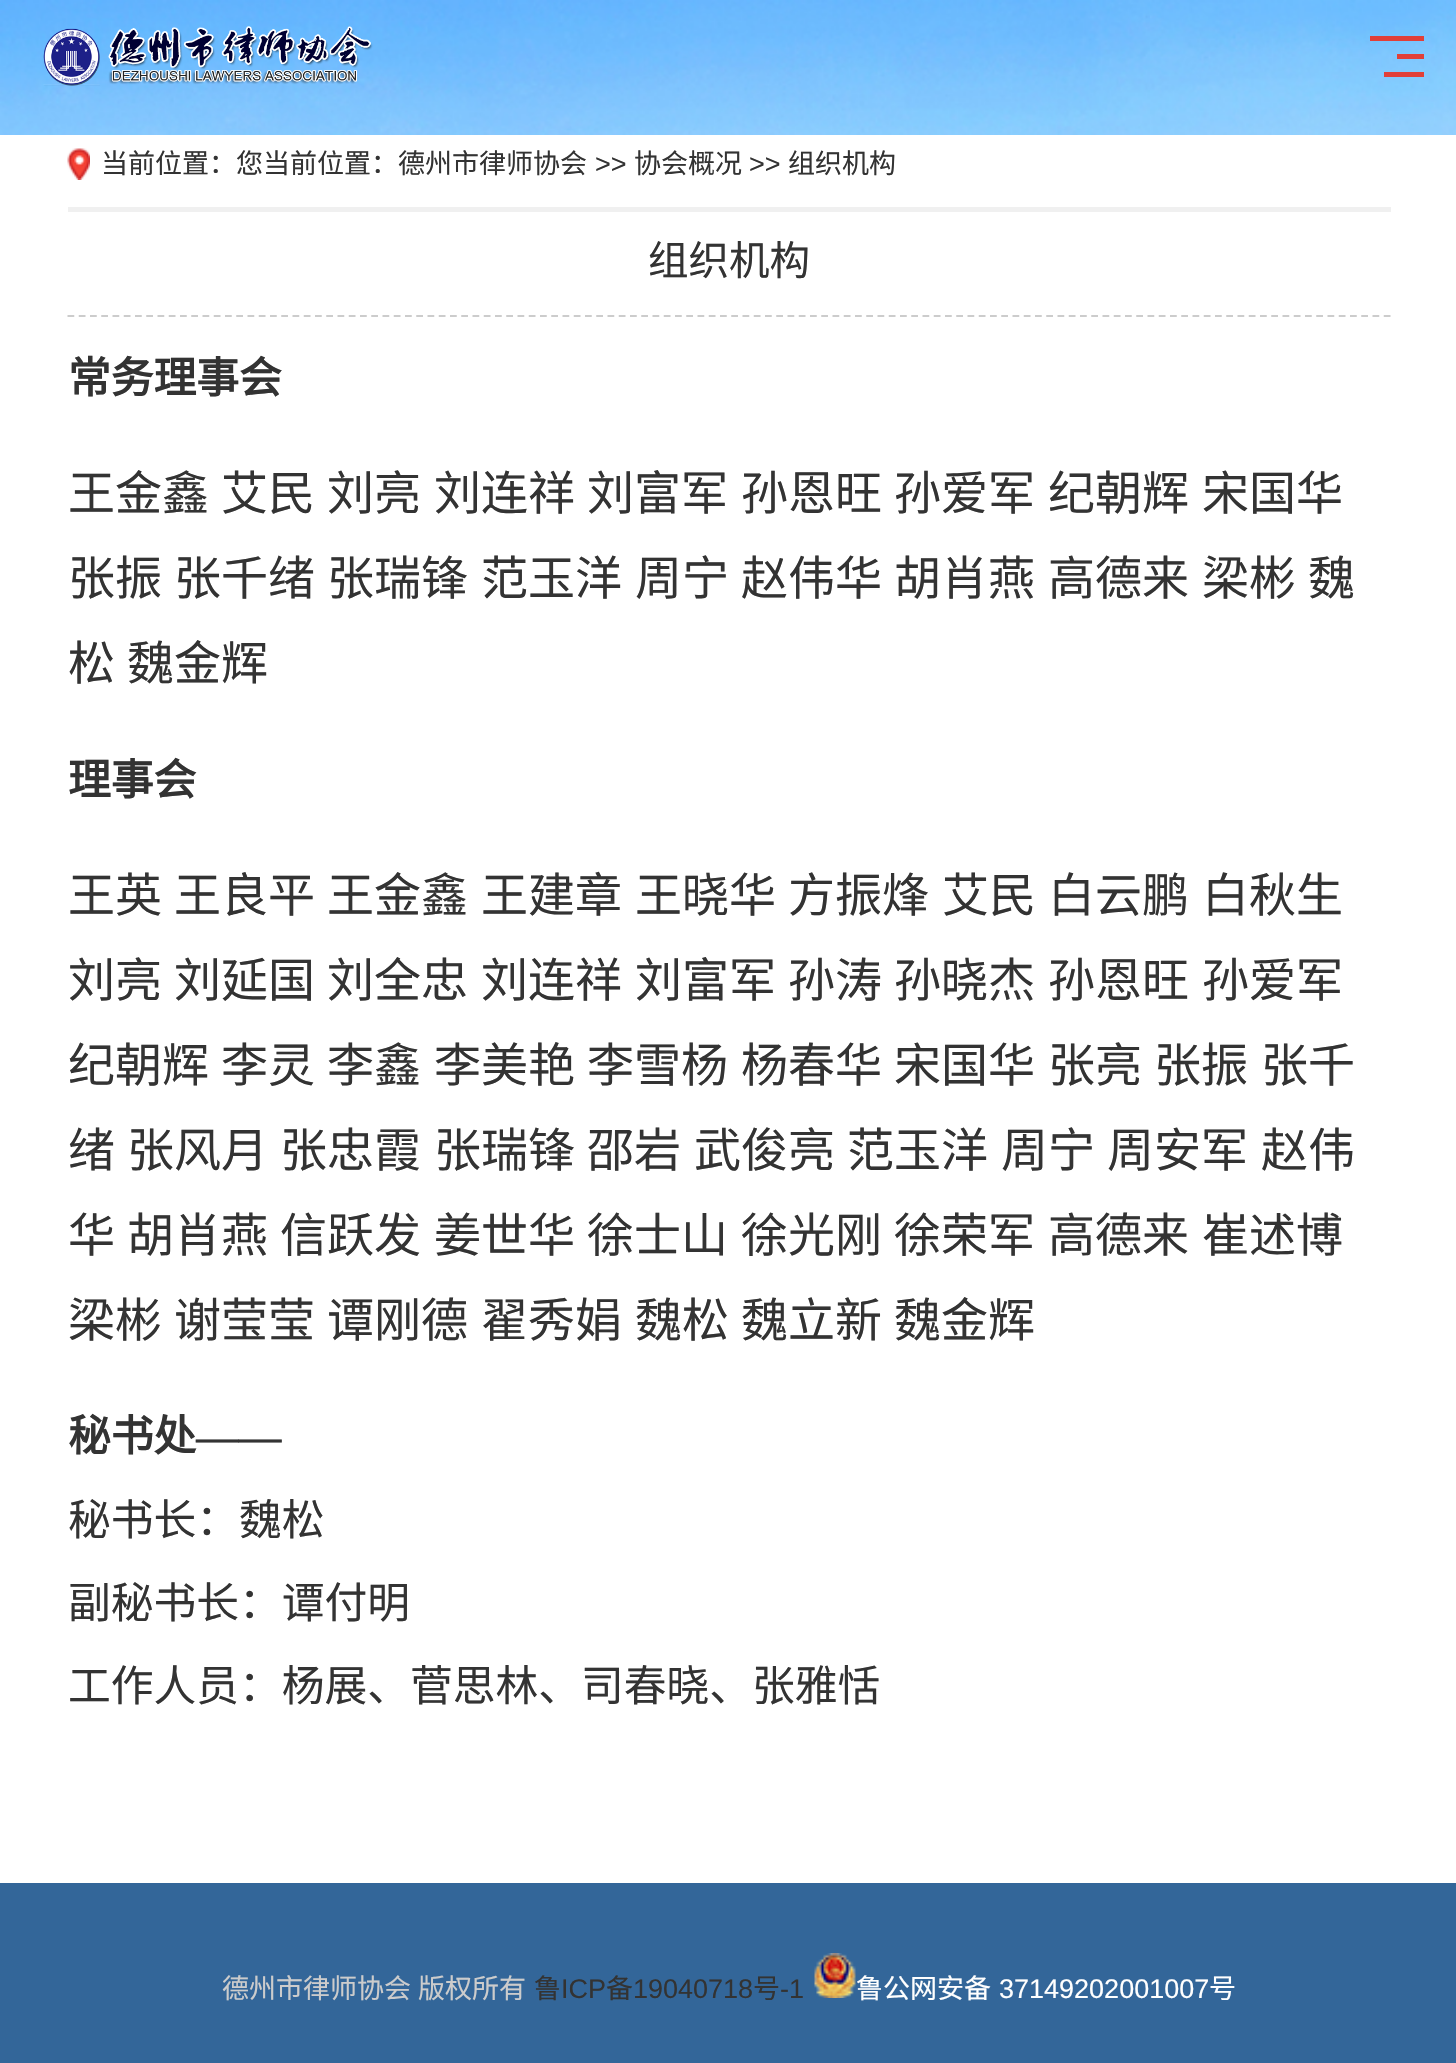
static SkFont makeFont(const char* family, int weight, float size, bool italic = false) {
  SkFontStyle style(weight, SkFontStyle::kNormal_Width,
    italic ? SkFontStyle::kItalic_Slant : SkFontStyle::kUpright_Slant);
  SkFont result(fontMgr->matchFamilyStyle(family, style), size);
  result.setSubpixel(true);
  return result;
}

static void text(SkCanvas* c, const char* s, float x, float y, const SkFont& font, SkColor color) {
  SkPaint ink(SkColor4f::FromColor(color));
  ink.setAntiAlias(true);
  c->drawString(s, x, y, font, ink);
}

static void spacedText(SkCanvas* c, const char* s, float x, float y, const SkFont& font, const SkPaint& ink, float letter, float word) {
  std::vector<SkGlyphID> glyphs(font.countText(s, strlen(s), SkTextEncoding::kUTF8));
  std::vector<float> xs(glyphs.size());
  font.textToGlyphs(s, strlen(s), SkTextEncoding::kUTF8, glyphs);
  font.getXPos(glyphs, xs, x);
  float extra = 0;
  for (size_t i = 0; i < glyphs.size(); i++) {
    xs[i] += extra;
    extra += letter + word * (glyphs[i] == font.unicharToGlyph(' '));
  }
  c->drawTextBlob(SkTextBlob::MakeFromPosHGlyphs(glyphs, xs, y, font), 0, 0, ink);
}

static void box(SkCanvas* c, float l, float t, float r, float b, SkColor color) {
  SkPaint ink(SkColor4f::FromColor(color));
  ink.setAntiAlias(true);
  c->drawRect(SkRect::MakeLTRB(l, t, r, b), ink);
}

static void picture(SkCanvas* c, const char* path, float l, float t, float r, float b) {
  auto image = SkImages::DeferredFromEncodedData(SkData::MakeFromFileName(path));
  c->drawImageRect(image, SkRect::MakeLTRB(l, t, r, b), SkSamplingOptions());
}

void draw(SkCanvas* c) {
  SkPaint paint;
  paint.setAntiAlias(true);
  c->clear(0xffffffff);
  picture(c, "img_01.png", 0, 0, 1456, 135);
  picture(c, "img_02.png", 43, 26, 373, 86);
  box(c, 1370, 36, 1424, 41, 0xffe13f38);
  box(c, 1397, 54, 1424, 59, 0xffe13f38);
  box(c, 1384, 72, 1424, 77, 0xffe13f38);
  picture(c, "img_03.png", 67, 148, 90, 180);
  box(c, 68, 207, 1391, 212, 0xfff0f0f0);
  SkFont face1 = makeFont("Noto Sans CJK SC", 400, 27);
  text(c, "当前位置：您当前位置：德州市律师协会", 101, 173, face1, 0xff333333);
  SkFont face2 = makeFont("Liberation Sans", 400, 27);
  text(c, ">>", 595, 173, face2, 0xff333333);
  text(c, "协会概况", 634, 173, face1, 0xff333333);
  text(c, ">>", 749, 173, face2, 0xff333333);
  text(c, "组织机构", 788, 173, face1, 0xff333333);
  paint.setStyle(SkPaint::kStroke_Style);
  paint.setStrokeWidth(2.2f);
  paint.setColor(0xffcccccc);
  paint.setPathEffect(SkDashPathEffect::Make({{6.75f, 4.5f}}, 0));
  c->drawPath(SkPathBuilder().moveTo(67.5f, 316).lineTo(1390.5f, 316).detach(), paint);
  paint.setPathEffect(nullptr);
  SkFont face3 = makeFont("Noto Sans CJK SC", 400, 40.5f);
  text(c, "组织机构", 648, 275, face3, 0xff333333);
  SkFont face4 = makeFont("Noto Sans CJK SC", 700, 42.75f);
  text(c, "常务理事会", 68, 393, face4, 0xff333333);
  SkFont face5 = makeFont("Noto Sans CJK SC", 400, 47);
  text(c, "王金鑫", 68, 510, face5, 0xff333333);
  text(c, "艾民", 221, 510, face5, 0xff333333);
  text(c, "刘亮", 327, 510, face5, 0xff333333);
  text(c, "刘连祥", 434, 510, face5, 0xff333333);
  text(c, "刘富军", 587, 510, face5, 0xff333333);
  text(c, "孙恩旺", 741, 510, face5, 0xff333333);
  text(c, "孙爱军", 894, 510, face5, 0xff333333);
  text(c, "纪朝辉", 1048, 510, face5, 0xff333333);
  text(c, "宋国华", 1202, 510, face5, 0xff333333);
  text(c, "张振", 68, 595, face5, 0xff333333);
  text(c, "张千绪", 174, 595, face5, 0xff333333);
  text(c, "张瑞锋", 327, 595, face5, 0xff333333);
  text(c, "范玉洋", 481, 595, face5, 0xff333333);
  text(c, "周宁", 635, 595, face5, 0xff333333);
  text(c, "赵伟华", 741, 595, face5, 0xff333333);
  text(c, "胡肖燕", 894, 595, face5, 0xff333333);
  text(c, "高德来", 1048, 595, face5, 0xff333333);
  text(c, "梁彬", 1202, 595, face5, 0xff333333);
  text(c, "魏", 1308, 595, face5, 0xff333333);
  text(c, "松", 68, 680, face5, 0xff333333);
  text(c, "魏金辉", 127, 680, face5, 0xff333333);
  text(c, "理事会", 68, 795, face4, 0xff333333);
  text(c, "王英", 68, 912, face5, 0xff333333);
  text(c, "王良平", 174, 912, face5, 0xff333333);
  text(c, "王金鑫", 327, 912, face5, 0xff333333);
  text(c, "王建章", 481, 912, face5, 0xff333333);
  text(c, "王晓华", 635, 912, face5, 0xff333333);
  text(c, "方振烽", 788, 912, face5, 0xff333333);
  text(c, "艾民", 942, 912, face5, 0xff333333);
  text(c, "白云鹏", 1048, 912, face5, 0xff333333);
  text(c, "白秋生", 1202, 912, face5, 0xff333333);
  text(c, "刘亮", 68, 997, face5, 0xff333333);
  text(c, "刘延国", 174, 997, face5, 0xff333333);
  text(c, "刘全忠", 327, 997, face5, 0xff333333);
  text(c, "刘连祥", 481, 997, face5, 0xff333333);
  text(c, "刘富军", 635, 997, face5, 0xff333333);
  text(c, "孙涛", 788, 997, face5, 0xff333333);
  text(c, "孙晓杰", 894, 997, face5, 0xff333333);
  text(c, "孙恩旺", 1048, 997, face5, 0xff333333);
  text(c, "孙爱军", 1202, 997, face5, 0xff333333);
  text(c, "纪朝辉", 68, 1082, face5, 0xff333333);
  text(c, "李灵", 221, 1082, face5, 0xff333333);
  text(c, "李鑫", 327, 1082, face5, 0xff333333);
  text(c, "李美艳", 434, 1082, face5, 0xff333333);
  text(c, "李雪杨", 587, 1082, face5, 0xff333333);
  text(c, "杨春华", 741, 1082, face5, 0xff333333);
  text(c, "宋国华", 894, 1082, face5, 0xff333333);
  text(c, "张亮", 1048, 1082, face5, 0xff333333);
  text(c, "张振", 1154, 1082, face5, 0xff333333);
  text(c, "张千", 1261, 1082, face5, 0xff333333);
  text(c, "绪", 68, 1167, face5, 0xff333333);
  text(c, "张风月", 127, 1167, face5, 0xff333333);
  text(c, "张忠霞", 280, 1167, face5, 0xff333333);
  text(c, "张瑞锋", 434, 1167, face5, 0xff333333);
  text(c, "邵岩", 587, 1167, face5, 0xff333333);
  text(c, "武俊亮", 694, 1167, face5, 0xff333333);
  text(c, "范玉洋", 847, 1167, face5, 0xff333333);
  text(c, "周宁", 1001, 1167, face5, 0xff333333);
  text(c, "周安军", 1107, 1167, face5, 0xff333333);
  text(c, "赵伟", 1261, 1167, face5, 0xff333333);
  text(c, "华", 68, 1252, face5, 0xff333333);
  text(c, "胡肖燕", 127, 1252, face5, 0xff333333);
  text(c, "信跃发", 280, 1252, face5, 0xff333333);
  text(c, "姜世华", 434, 1252, face5, 0xff333333);
  text(c, "徐士山", 587, 1252, face5, 0xff333333);
  text(c, "徐光刚", 741, 1252, face5, 0xff333333);
  text(c, "徐荣军", 894, 1252, face5, 0xff333333);
  text(c, "高德来", 1048, 1252, face5, 0xff333333);
  text(c, "崔述博", 1202, 1252, face5, 0xff333333);
  text(c, "梁彬", 68, 1337, face5, 0xff333333);
  text(c, "谢莹莹", 174, 1337, face5, 0xff333333);
  text(c, "谭刚德", 327, 1337, face5, 0xff333333);
  text(c, "翟秀娟", 481, 1337, face5, 0xff333333);
  text(c, "魏松", 635, 1337, face5, 0xff333333);
  text(c, "魏立新", 741, 1337, face5, 0xff333333);
  text(c, "魏金辉", 894, 1337, face5, 0xff333333);
  text(c, "秘书处", 68, 1451, face4, 0xff333333);
  SkFont face6 = makeFont("Liberation Serif", 700, 42.75f);
  text(c, "——", 196, 1451, face6, 0xff333333);
  SkFont face7 = makeFont("Noto Sans CJK SC", 400, 42.75f);
  text(c, "秘书长：魏松", 68, 1535, face7, 0xff333333);
  text(c, "副秘书长：谭付明", 68, 1618, face7, 0xff333333);
  text(c, "工作人员：杨展、菅思林、司春晓、张雅恬", 68, 1701, face7, 0xff333333);
  box(c, 0, 1883, 1456, 2063, 0xff336699);
  paint.setStyle(SkPaint::kFill_Style);
  spacedText(c, "德州市律师协会 版权所有", 222, 1998, face1, paint, 0, 1);
  text(c, "鲁", 534, 1998, face1, 0xff333333);
  text(c, "ICP", 561, 1998, face2, 0xff333333);
  text(c, "备", 606, 1998, face1, 0xff333333);
  text(c, "19040718", 633, 1998, face2, 0xff333333);
  text(c, "号", 753, 1998, face1, 0xff333333);
  text(c, "-1", 780, 1998, face2, 0xff333333);
  picture(c, "img_04.png", 814, 1953, 856, 1998);
  text(c, "鲁公网安备", 856, 1998, face1, 0xffffffff);
  text(c, "37149202001007", 999, 1998, face2, 0xffffffff);
  text(c, "号", 1209, 1998, face1, 0xffffffff);
}
